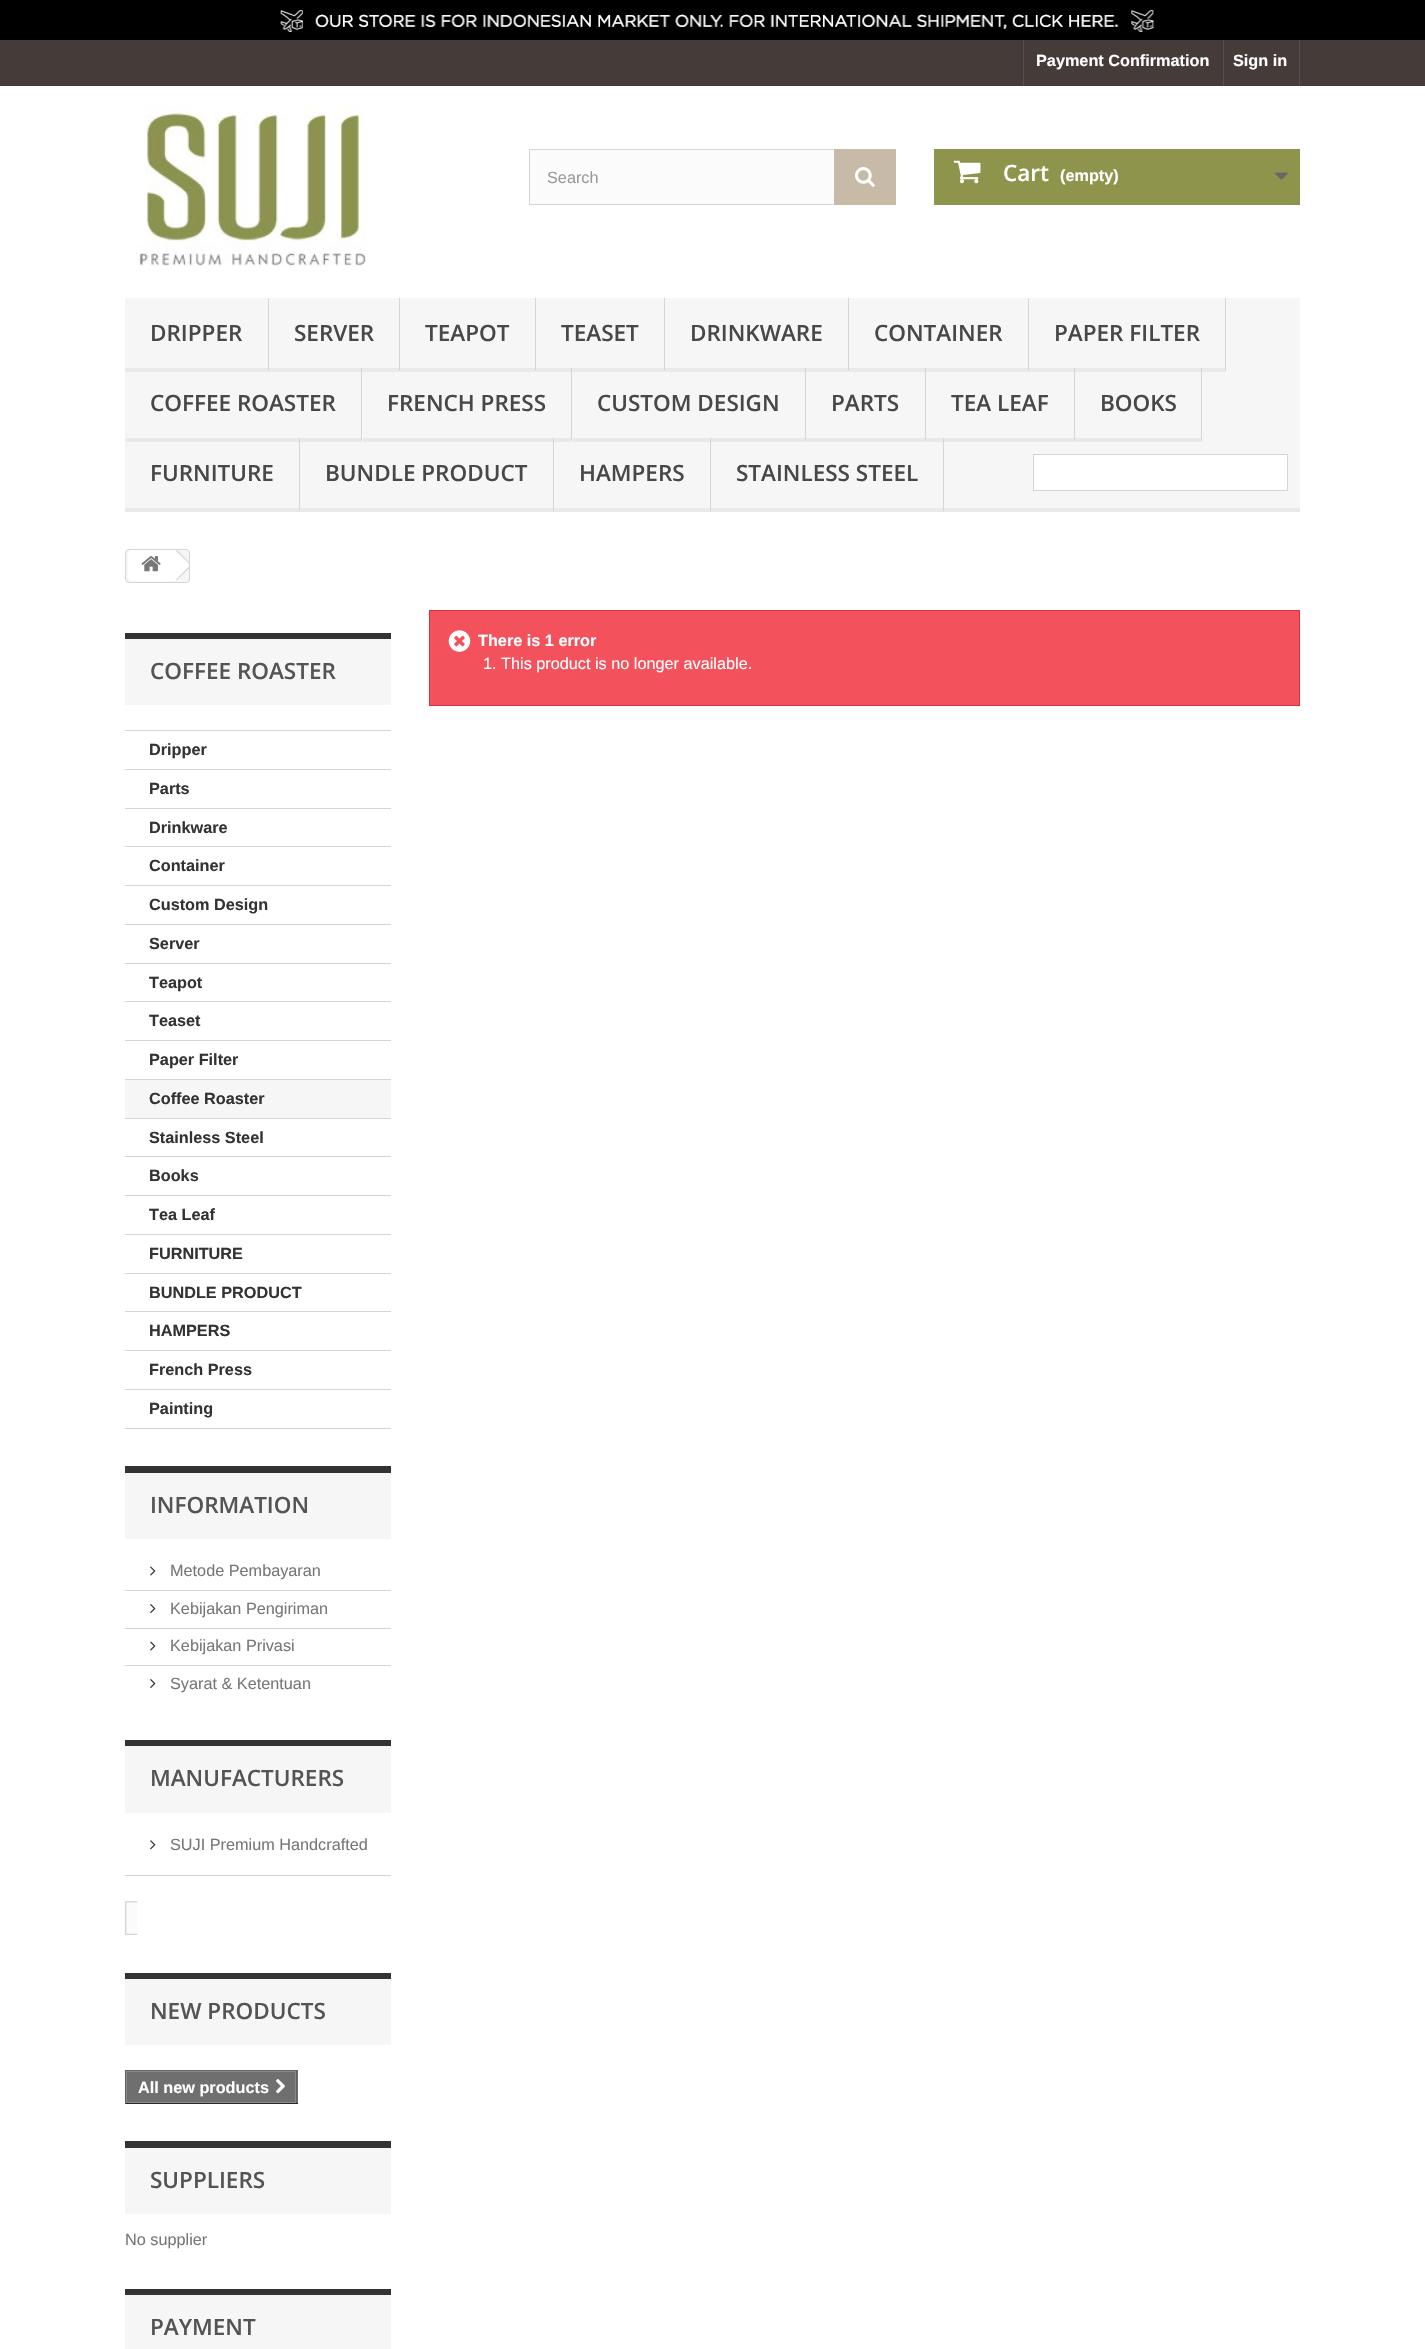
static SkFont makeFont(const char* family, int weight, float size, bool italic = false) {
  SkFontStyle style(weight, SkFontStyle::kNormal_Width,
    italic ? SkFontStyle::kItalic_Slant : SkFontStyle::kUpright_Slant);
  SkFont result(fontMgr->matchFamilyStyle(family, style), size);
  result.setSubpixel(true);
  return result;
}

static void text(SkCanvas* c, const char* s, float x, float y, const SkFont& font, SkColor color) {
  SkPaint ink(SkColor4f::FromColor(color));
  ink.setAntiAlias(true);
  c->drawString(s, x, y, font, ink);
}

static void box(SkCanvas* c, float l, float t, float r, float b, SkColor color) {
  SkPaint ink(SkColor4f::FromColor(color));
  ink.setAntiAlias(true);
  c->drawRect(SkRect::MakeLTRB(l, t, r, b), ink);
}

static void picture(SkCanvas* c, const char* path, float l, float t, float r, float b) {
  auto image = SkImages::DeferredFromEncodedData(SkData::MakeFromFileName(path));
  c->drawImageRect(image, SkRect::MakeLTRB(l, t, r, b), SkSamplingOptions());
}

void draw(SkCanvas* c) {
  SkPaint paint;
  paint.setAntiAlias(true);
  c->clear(0xffffffff);
  box(c, 0, 0, 1425, 40, 0xff000000);
  picture(c, "img_01.png", 280, 10, 1154, 32);
  box(c, 0, 40, 1425, 86, 0xff453b39);
  box(c, 1023, 40, 1024, 86, 0xff515151);
  SkFont face1 = makeFont("Liberation Sans", 700, 16.25f);
  text(c, "Payment Confirmation", 1036, 66, face1, 0xffffffff);
  box(c, 1299, 40, 1300, 86, 0xff515151);
  box(c, 1223, 40, 1224, 86, 0xff515151);
  text(c, "Sign in", 1233, 66, face1, 0xffffffff);
  picture(c, "img_02.png", 136, 105, 366, 266);
  box(c, 530, 150, 834, 204, 0xfffbfbfb);
  paint.setStyle(SkPaint::kStroke_Style);
  paint.setStrokeWidth(1);
  paint.setColor(0xffd6d4d4);
  c->drawRect(SkRect::MakeLTRB(529.5f, 149.5f, 895.5f, 204.5f), paint);
  SkFont face2 = makeFont("Liberation Sans", 400, 16.25f);
  text(c, "Search", 547, 183, face2, 0xff999999);
  box(c, 834, 149, 896, 205, 0xffc7baa7);
  picture(c, "img_03.png", 855, 167, 875, 187);
  box(c, 934, 149, 1300, 205, 0xff8e944c);
  picture(c, "img_04.png", 953, 160, 981, 184);
  SkFont face3 = makeFont("Open Sans", 600, 22.5f);
  text(c, "Cart", 1003, 181, face3, 0xffffffff);
  text(c, "(empty)", 1060, 181, face1, 0xffffffff);
  picture(c, "img_05.png", 1275, 172, 1288, 180);
  box(c, 125, 298, 1300, 508, 0xfff6f6f6);
  box(c, 125, 508, 1300, 512, 0xffe9e9e9);
  box(c, 268, 298, 269, 371, 0xffd6d4d4);
  box(c, 125, 368, 268, 372, 0xffe9e9e9);
  text(c, "DRIPPER", 150, 341, face3, 0xff484848);
  box(c, 399, 298, 400, 371, 0xffd6d4d4);
  box(c, 269, 368, 399, 372, 0xffe9e9e9);
  text(c, "SERVER", 294, 341, face3, 0xff484848);
  box(c, 535, 298, 536, 371, 0xffd6d4d4);
  box(c, 400, 368, 535, 372, 0xffe9e9e9);
  text(c, "TEAPOT", 425, 341, face3, 0xff484848);
  box(c, 664, 298, 665, 371, 0xffd6d4d4);
  box(c, 536, 368, 664, 372, 0xffe9e9e9);
  text(c, "TEASET", 561, 341, face3, 0xff484848);
  box(c, 848, 298, 849, 371, 0xffd6d4d4);
  box(c, 665, 368, 848, 372, 0xffe9e9e9);
  text(c, "DRINKWARE", 690, 341, face3, 0xff484848);
  box(c, 1028, 298, 1029, 371, 0xffd6d4d4);
  box(c, 849, 368, 1028, 372, 0xffe9e9e9);
  text(c, "CONTAINER", 874, 341, face3, 0xff484848);
  box(c, 1225, 298, 1226, 371, 0xffd6d4d4);
  box(c, 1029, 368, 1225, 372, 0xffe9e9e9);
  text(c, "PAPER FILTER", 1054, 341, face3, 0xff484848);
  box(c, 361, 368, 362, 441, 0xffd6d4d4);
  box(c, 125, 438, 361, 442, 0xffe9e9e9);
  text(c, "COFFEE ROASTER", 150, 411, face3, 0xff484848);
  box(c, 571, 368, 572, 441, 0xffd6d4d4);
  box(c, 363, 438, 571, 442, 0xffe9e9e9);
  text(c, "FRENCH PRESS", 387, 411, face3, 0xff484848);
  box(c, 805, 368, 806, 441, 0xffd6d4d4);
  box(c, 573, 438, 805, 442, 0xffe9e9e9);
  text(c, "CUSTOM DESIGN", 597, 411, face3, 0xff484848);
  box(c, 925, 368, 926, 441, 0xffd6d4d4);
  box(c, 806, 438, 925, 442, 0xffe9e9e9);
  text(c, "PARTS", 831, 411, face3, 0xff484848);
  box(c, 1074, 368, 1075, 441, 0xffd6d4d4);
  box(c, 926, 438, 1074, 442, 0xffe9e9e9);
  text(c, "TEA LEAF", 951, 411, face3, 0xff484848);
  box(c, 1201, 368, 1202, 441, 0xffd6d4d4);
  box(c, 1075, 438, 1201, 442, 0xffe9e9e9);
  text(c, "BOOKS", 1100, 411, face3, 0xff484848);
  box(c, 299, 438, 300, 511, 0xffd6d4d4);
  text(c, "FURNITURE", 150, 481, face3, 0xff484848);
  box(c, 553, 438, 554, 511, 0xffd6d4d4);
  text(c, "BUNDLE PRODUCT", 325, 481, face3, 0xff484848);
  box(c, 710, 438, 711, 511, 0xffd6d4d4);
  text(c, "HAMPERS", 579, 481, face3, 0xff484848);
  box(c, 943, 438, 944, 511, 0xffd6d4d4);
  text(c, "STAINLESS STEEL", 736, 481, face3, 0xff484848);
  paint.setStyle(SkPaint::kFill_Style);
  paint.setColor(0xffffffff);
  c->drawRect(SkRect::MakeLTRB(1033.5f, 454.5f, 1287.5f, 490.5f), paint);
  paint.setStyle(SkPaint::kStroke_Style);
  paint.setColor(0xffd6d4d4);
  c->drawRect(SkRect::MakeLTRB(1033.5f, 454.5f, 1287.5f, 490.5f), paint);
  paint.setStyle(SkPaint::kFill_Style);
  paint.setColor(0xfff6f6f6);
  c->drawRoundRect(SkRect::MakeLTRB(125.5f, 549.5f, 189.5f, 582.5f), 3.5f, 3.5f, paint);
  paint.setStyle(SkPaint::kStroke_Style);
  paint.setColor(0xffd6d4d4);
  c->drawRoundRect(SkRect::MakeLTRB(125.5f, 549.5f, 189.5f, 582.5f), 3.5f, 3.5f, paint);
  paint.setStyle(SkPaint::kFill_Style);
  paint.setColor(0xffffffff);
  c->drawPath(SkPathBuilder().moveTo(132, 550).lineTo(175, 550).lineTo(175, 581).lineTo(132, 581).cubicTo(130, 581, 128, 579, 128, 577).lineTo(128, 554).cubicTo(128, 552, 130, 550, 132, 550).close().detach(), paint);
  picture(c, "img_06.png", 141, 556, 161, 572);
  c->drawPath(SkPathBuilder().moveTo(178, 551).lineTo(189, 562).lineTo(189, 568.5f).lineTo(178, 579.5f).cubicTo(177, 580.5f, 175.5f, 580.5f, 174.5f, 579.5f).lineTo(162, 567).cubicTo(161, 566, 161, 564.5f, 162, 563.5f).lineTo(174.5f, 551).cubicTo(175.5f, 550, 177, 550, 178, 551).close().detach(), paint);
  paint.setColor(0xffd6d4d4);
  c->drawPath(SkPathBuilder().moveTo(177, 550).lineTo(189, 562).lineTo(189, 563.5f).lineTo(176, 551).close().moveTo(189, 566.5f).lineTo(189, 568.5f).lineTo(177, 580).lineTo(176, 579.5f).close().detach(), paint);
  paint.setColor(0xfff3515c);
  c->drawRect(SkRect::MakeLTRB(429.5f, 610.5f, 1299.5f, 705.5f), paint);
  paint.setStyle(SkPaint::kStroke_Style);
  paint.setColor(0xffd4323d);
  c->drawRect(SkRect::MakeLTRB(429.5f, 610.5f, 1299.5f, 705.5f), paint);
  picture(c, "img_07.png", 448, 630, 471, 652);
  text(c, "There is 1 error", 478, 646, face1, 0xffffffff);
  text(c, "1. This product is no longer available.", 483, 669, face2, 0xffffffff);
  box(c, 125, 639, 391, 705, 0xfff6f6f6);
  box(c, 125, 633, 391, 639, 0xff333333);
  text(c, "COFFEE ROASTER", 150, 679, face3, 0xff555454);
  box(c, 125, 730, 391, 731, 0xffd6d4d4);
  box(c, 125, 769, 391, 770, 0xffd6d4d4);
  text(c, "Dripper", 149, 755, face1, 0xff333333);
  box(c, 125, 808, 391, 809, 0xffd6d4d4);
  text(c, "Parts", 149, 794, face1, 0xff333333);
  box(c, 125, 846, 391, 847, 0xffd6d4d4);
  text(c, "Drinkware", 149, 833, face1, 0xff333333);
  box(c, 125, 885, 391, 886, 0xffd6d4d4);
  text(c, "Container", 149, 871, face1, 0xff333333);
  box(c, 125, 924, 391, 925, 0xffd6d4d4);
  text(c, "Custom Design", 149, 910, face1, 0xff333333);
  box(c, 125, 963, 391, 964, 0xffd6d4d4);
  text(c, "Server", 149, 949, face1, 0xff333333);
  box(c, 125, 1001, 391, 1002, 0xffd6d4d4);
  text(c, "Teapot", 149, 988, face1, 0xff333333);
  box(c, 125, 1040, 391, 1041, 0xffd6d4d4);
  text(c, "Teaset", 149, 1026, face1, 0xff333333);
  box(c, 125, 1079, 391, 1080, 0xffd6d4d4);
  text(c, "Paper Filter", 149, 1065, face1, 0xff333333);
  box(c, 125, 1080, 391, 1118, 0xfff6f6f6);
  box(c, 125, 1118, 391, 1119, 0xffd6d4d4);
  text(c, "Coffee Roaster", 149, 1104, face1, 0xff333333);
  box(c, 125, 1156, 391, 1157, 0xffd6d4d4);
  text(c, "Stainless Steel", 149, 1143, face1, 0xff333333);
  box(c, 125, 1195, 391, 1196, 0xffd6d4d4);
  text(c, "Books", 149, 1181, face1, 0xff333333);
  box(c, 125, 1234, 391, 1235, 0xffd6d4d4);
  text(c, "Tea Leaf", 149, 1220, face1, 0xff333333);
  box(c, 125, 1273, 391, 1274, 0xffd6d4d4);
  text(c, "FURNITURE", 149, 1259, face1, 0xff333333);
  box(c, 125, 1311, 391, 1312, 0xffd6d4d4);
  text(c, "BUNDLE PRODUCT", 149, 1298, face1, 0xff333333);
  box(c, 125, 1350, 391, 1351, 0xffd6d4d4);
  text(c, "HAMPERS", 149, 1336, face1, 0xff333333);
  box(c, 125, 1389, 391, 1390, 0xffd6d4d4);
  text(c, "French Press", 149, 1375, face1, 0xff333333);
  box(c, 125, 1428, 391, 1429, 0xffd6d4d4);
  text(c, "Painting", 149, 1414, face1, 0xff333333);
  box(c, 125, 1473, 391, 1539, 0xfff6f6f6);
  box(c, 125, 1466, 391, 1473, 0xff333333);
  text(c, "INFORMATION", 150, 1513, face3, 0xff555454);
  picture(c, "img_08.png", 150, 1566, 156, 1576);
  text(c, "Metode Pembayaran", 170, 1576, face2, 0xff777777);
  box(c, 125, 1590, 391, 1591, 0xffd6d4d4);
  picture(c, "img_09.png", 150, 1604, 156, 1613);
  text(c, "Kebijakan Pengiriman", 170, 1614, face2, 0xff777777);
  box(c, 125, 1628, 391, 1629, 0xffd6d4d4);
  picture(c, "img_08.png", 150, 1641, 156, 1651);
  text(c, "Kebijakan Privasi", 170, 1651, face2, 0xff777777);
  box(c, 125, 1665, 391, 1666, 0xffd6d4d4);
  picture(c, "img_09.png", 150, 1679, 156, 1688);
  text(c, "Syarat & Ketentuan", 170, 1689, face2, 0xff777777);
  box(c, 125, 1746, 391, 1813, 0xfff6f6f6);
  box(c, 125, 1740, 391, 1746, 0xff333333);
  text(c, "MANUFACTURERS", 150, 1786, face3, 0xff555454);
  picture(c, "img_10.png", 150, 1840, 156, 1850);
  text(c, "SUJI Premium Handcrafted", 170, 1850, face2, 0xff777777);
  box(c, 125, 1875, 391, 1876, 0xffd6d4d4);
  picture(c, "img_11.png", 125, 1901, 138, 1935);
  box(c, 125, 1979, 391, 2045, 0xfff6f6f6);
  box(c, 125, 1973, 391, 1979, 0xff333333);
  text(c, "NEW PRODUCTS", 150, 2019, face3, 0xff555454);
  box(c, 127, 2071, 298, 2103, 0xff6f6f6f);
  box(c, 125, 2070, 298, 2071, 0xff666666);
  box(c, 296, 2070, 297, 2104, 0xff5f5f5f);
  box(c, 125, 2103, 298, 2104, 0xff292929);
  box(c, 125, 2070, 126, 2104, 0xff5f5f5f);
  paint.setColor(0xff8b8a8a);
  c->drawRect(SkRect::MakeLTRB(126.5f, 2071.5f, 295.5f, 2102.5f), paint);
  text(c, "All new products", 138, 2093, face1, 0xffffffff);
  picture(c, "img_12.png", 276, 2079, 285, 2094);
  box(c, 125, 2148, 391, 2214, 0xfff6f6f6);
  box(c, 125, 2141, 391, 2148, 0xff333333);
  text(c, "SUPPLIERS", 150, 2188, face3, 0xff555454);
  text(c, "No supplier", 125, 2245, face2, 0xff777777);
  box(c, 125, 2295, 391, 2349, 0xfff6f6f6);
  box(c, 125, 2289, 391, 2295, 0xff333333);
  text(c, "PAYMENT", 150, 2335, face3, 0xff555454);
}
